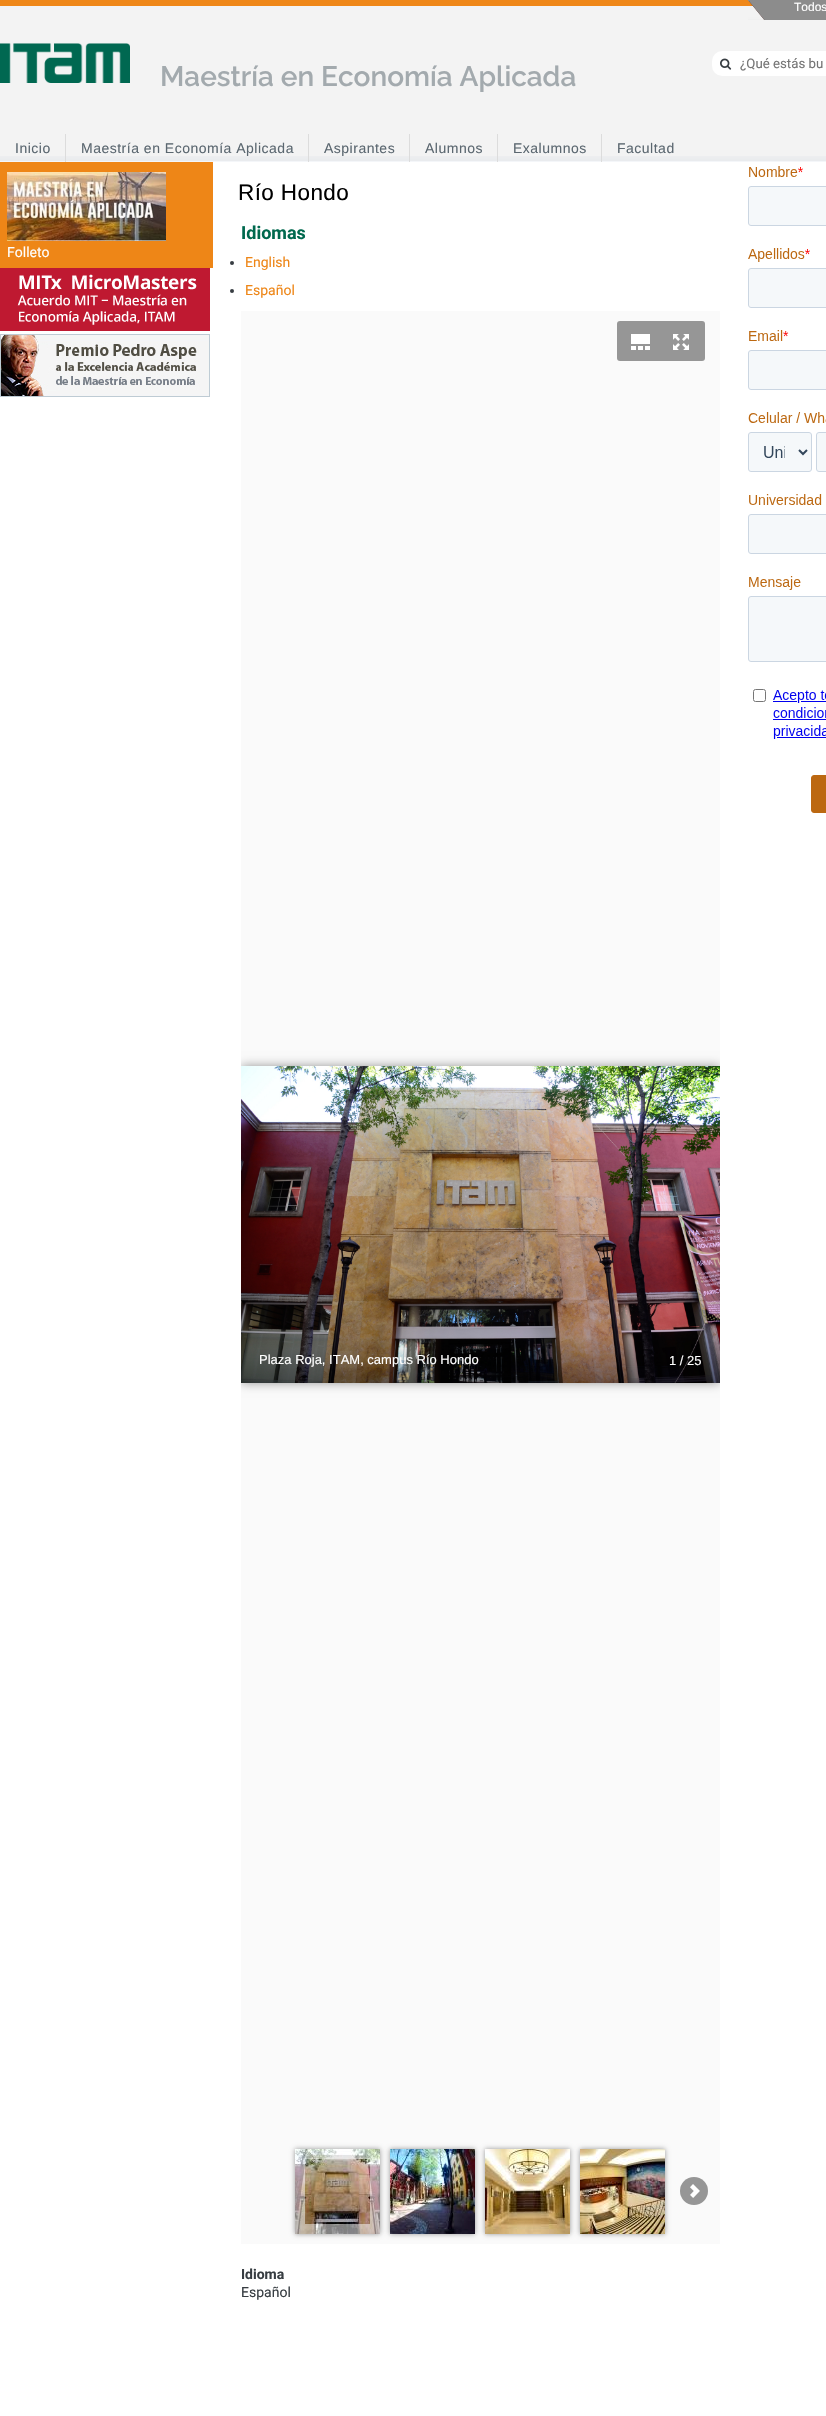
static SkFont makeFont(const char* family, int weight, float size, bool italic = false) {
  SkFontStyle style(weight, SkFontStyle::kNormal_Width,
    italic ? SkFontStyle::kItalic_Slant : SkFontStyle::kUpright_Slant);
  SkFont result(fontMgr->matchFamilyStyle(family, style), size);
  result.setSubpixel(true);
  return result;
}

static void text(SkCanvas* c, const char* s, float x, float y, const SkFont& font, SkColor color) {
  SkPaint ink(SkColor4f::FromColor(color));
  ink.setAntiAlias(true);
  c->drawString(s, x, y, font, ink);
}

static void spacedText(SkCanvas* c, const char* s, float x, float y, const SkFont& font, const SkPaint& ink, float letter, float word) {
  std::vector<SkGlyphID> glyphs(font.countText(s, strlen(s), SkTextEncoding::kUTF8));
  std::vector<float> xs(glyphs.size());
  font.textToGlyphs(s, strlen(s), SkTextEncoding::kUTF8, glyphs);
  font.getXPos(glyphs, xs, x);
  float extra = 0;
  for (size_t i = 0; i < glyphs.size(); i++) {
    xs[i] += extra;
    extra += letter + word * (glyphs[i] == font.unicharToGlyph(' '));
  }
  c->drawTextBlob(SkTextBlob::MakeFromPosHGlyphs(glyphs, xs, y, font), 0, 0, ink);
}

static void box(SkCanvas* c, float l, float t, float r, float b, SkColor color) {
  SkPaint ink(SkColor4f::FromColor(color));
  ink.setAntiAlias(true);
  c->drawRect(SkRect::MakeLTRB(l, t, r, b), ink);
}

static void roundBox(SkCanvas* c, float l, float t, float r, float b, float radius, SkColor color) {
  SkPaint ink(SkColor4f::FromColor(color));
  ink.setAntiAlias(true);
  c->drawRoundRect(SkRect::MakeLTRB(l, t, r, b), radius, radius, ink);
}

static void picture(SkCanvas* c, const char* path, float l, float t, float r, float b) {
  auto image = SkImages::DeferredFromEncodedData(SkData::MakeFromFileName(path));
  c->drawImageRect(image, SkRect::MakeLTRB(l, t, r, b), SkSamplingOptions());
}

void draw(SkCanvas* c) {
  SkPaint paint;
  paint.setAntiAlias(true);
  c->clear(0xffffffff);
  box(c, 0, 0, 753, 6, 0xffef8718);
  box(c, 0, 6, 826, 161, 0xfff3f3f3);
  picture(c, "img_01.png", 748, 0, 826, 20);
  SkFont face1 = makeFont("Liberation Sans", 400, 12);
  paint.setColor(0xffffffff);
  spacedText(c, "Todos", 794, 11, face1, paint, 0, 5);
  picture(c, "img_02.png", 0, 43, 130, 83);
  SkFont face2 = makeFont("Raleway", 600, 28);
  text(c, "Maestría en Economía Aplicada", 160, 86, face2, 0xffa3aaae);
  roundBox(c, 712, 51, 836, 76, 10, 0xffffffff);
  picture(c, "img_03.png", 720, 58, 732, 70);
  SkFont face3 = makeFont("Roboto", 400, 13.25f);
  text(c, "¿Qué estás bu", 740, 68, face3, 0xff757575);
  picture(c, "img_04.png", 0, 156, 826, 162);
  box(c, 65, 134, 66, 162, 0xffdcdcdc);
  SkFont face4 = makeFont("Liberation Sans", 400, 14);
  paint.setColor(0xff5b6770);
  spacedText(c, "Inicio", 15, 153, face4, paint, 0.5f, 0);
  box(c, 308, 134, 309, 162, 0xffdcdcdc);
  spacedText(c, "Maestría en Economía Aplicada", 81, 153, face4, paint, 0.5f, 0);
  box(c, 409, 134, 410, 162, 0xffdcdcdc);
  spacedText(c, "Aspirantes", 324, 153, face4, paint, 0.5f, 0);
  box(c, 497, 134, 498, 162, 0xffdcdcdc);
  spacedText(c, "Alumnos", 425, 153, face4, paint, 0.5f, 0);
  box(c, 601, 134, 602, 162, 0xffdcdcdc);
  spacedText(c, "Exalumnos", 513, 153, face4, paint, 0.5f, 0);
  spacedText(c, "Facultad", 617, 153, face4, paint, 0.5f, 0);
  box(c, 0, 162, 213, 268, 0xffee8617);
  picture(c, "img_05.png", 7, 172, 166, 241);
  SkFont face5 = makeFont("Roboto", 400, 14);
  text(c, "Folleto", 7, 257, face5, 0xffffffff);
  picture(c, "img_06.png", 0, 268, 210, 331);
  picture(c, "img_07.png", 0, 334, 210, 397);
  SkFont face6 = makeFont("Liberation Sans", 400, 22.5f);
  paint.setColor(0xff000000);
  spacedText(c, "Río Hondo", 238, 200, face6, paint, 0.4f, 0);
  SkFont face7 = makeFont("Roboto", 700, 18);
  text(c, "Idiomas", 241, 239, face7, 0xff00694e);
  paint.setColor(0xff373d42);
  c->drawCircle(232, 263, 2, paint);
  text(c, "English", 245, 267, face5, 0xffee8617);
  c->drawCircle(232, 291, 2, paint);
  text(c, "Español", 245, 295, face5, 0xffee8617);
  box(c, 241, 311, 720, 2244, 0xfffafafa);
  roundBox(c, 617, 321, 705, 361, 3, 0xff969696);
  picture(c, "img_08.png", 631, 334, 650, 350);
  picture(c, "img_09.png", 673, 334, 689, 350);
  c->save();
  c->clipRect(SkRect::MakeLTRB(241, 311, 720, 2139));
  paint.setColor(0x66000000);
  paint.setMaskFilter(SkMaskFilter::MakeBlur(kNormal_SkBlurStyle, 5));
  c->drawRect(SkRect::MakeLTRB(241, 1066, 720, 1383), paint);
  paint.setMaskFilter(nullptr);
  c->restore();
  picture(c, "img_10.png", 241, 1066, 720, 1383);
  SkFont face8 = makeFont("Liberation Sans", 400, 13);
  text(c, "Plaza Roja, ITAM, campus Río Hondo", 259, 1364, face8, 0xffffffff);
  text(c, "1 / 25", 669, 1365, face8, 0xffffffff);
  paint.setMaskFilter(SkMaskFilter::MakeBlur(kNormal_SkBlurStyle, 2.5f));
  c->drawRect(SkRect::MakeLTRB(295, 2149, 380, 2234), paint);
  paint.setMaskFilter(nullptr);
  picture(c, "img_11.png", 295, 2149, 380, 2234);
  paint.setStyle(SkPaint::kStroke_Style);
  paint.setStrokeWidth(10);
  paint.setColor(0x80ffffff);
  c->drawRect(SkRect::MakeLTRB(300, 2154, 375, 2229), paint);
  paint.setStyle(SkPaint::kFill_Style);
  paint.setColor(0x66000000);
  paint.setMaskFilter(SkMaskFilter::MakeBlur(kNormal_SkBlurStyle, 2.5f));
  c->drawRect(SkRect::MakeLTRB(390, 2149, 475, 2234), paint);
  paint.setMaskFilter(nullptr);
  picture(c, "img_12.png", 390, 2149, 475, 2234);
  paint.setMaskFilter(SkMaskFilter::MakeBlur(kNormal_SkBlurStyle, 2.5f));
  c->drawRect(SkRect::MakeLTRB(485, 2149, 570, 2234), paint);
  paint.setMaskFilter(nullptr);
  picture(c, "img_13.png", 485, 2149, 570, 2234);
  paint.setMaskFilter(SkMaskFilter::MakeBlur(kNormal_SkBlurStyle, 2.5f));
  c->drawRect(SkRect::MakeLTRB(580, 2149, 665, 2234), paint);
  paint.setMaskFilter(nullptr);
  picture(c, "img_14.png", 580, 2149, 665, 2234);
  paint.setColor(0xff969696);
  c->drawCircle(694, 2191, 14, paint);
  picture(c, "img_15.png", 690, 2184, 700, 2198);
  SkFont face9 = makeFont("Roboto", 700, 14);
  text(c, "Idioma", 241, 2279, face9, 0xff373d42);
  text(c, "Español", 241, 2297, face5, 0xff373d42);
  picture(c, "img_16.png", 748, 166, 826, 813);
}
